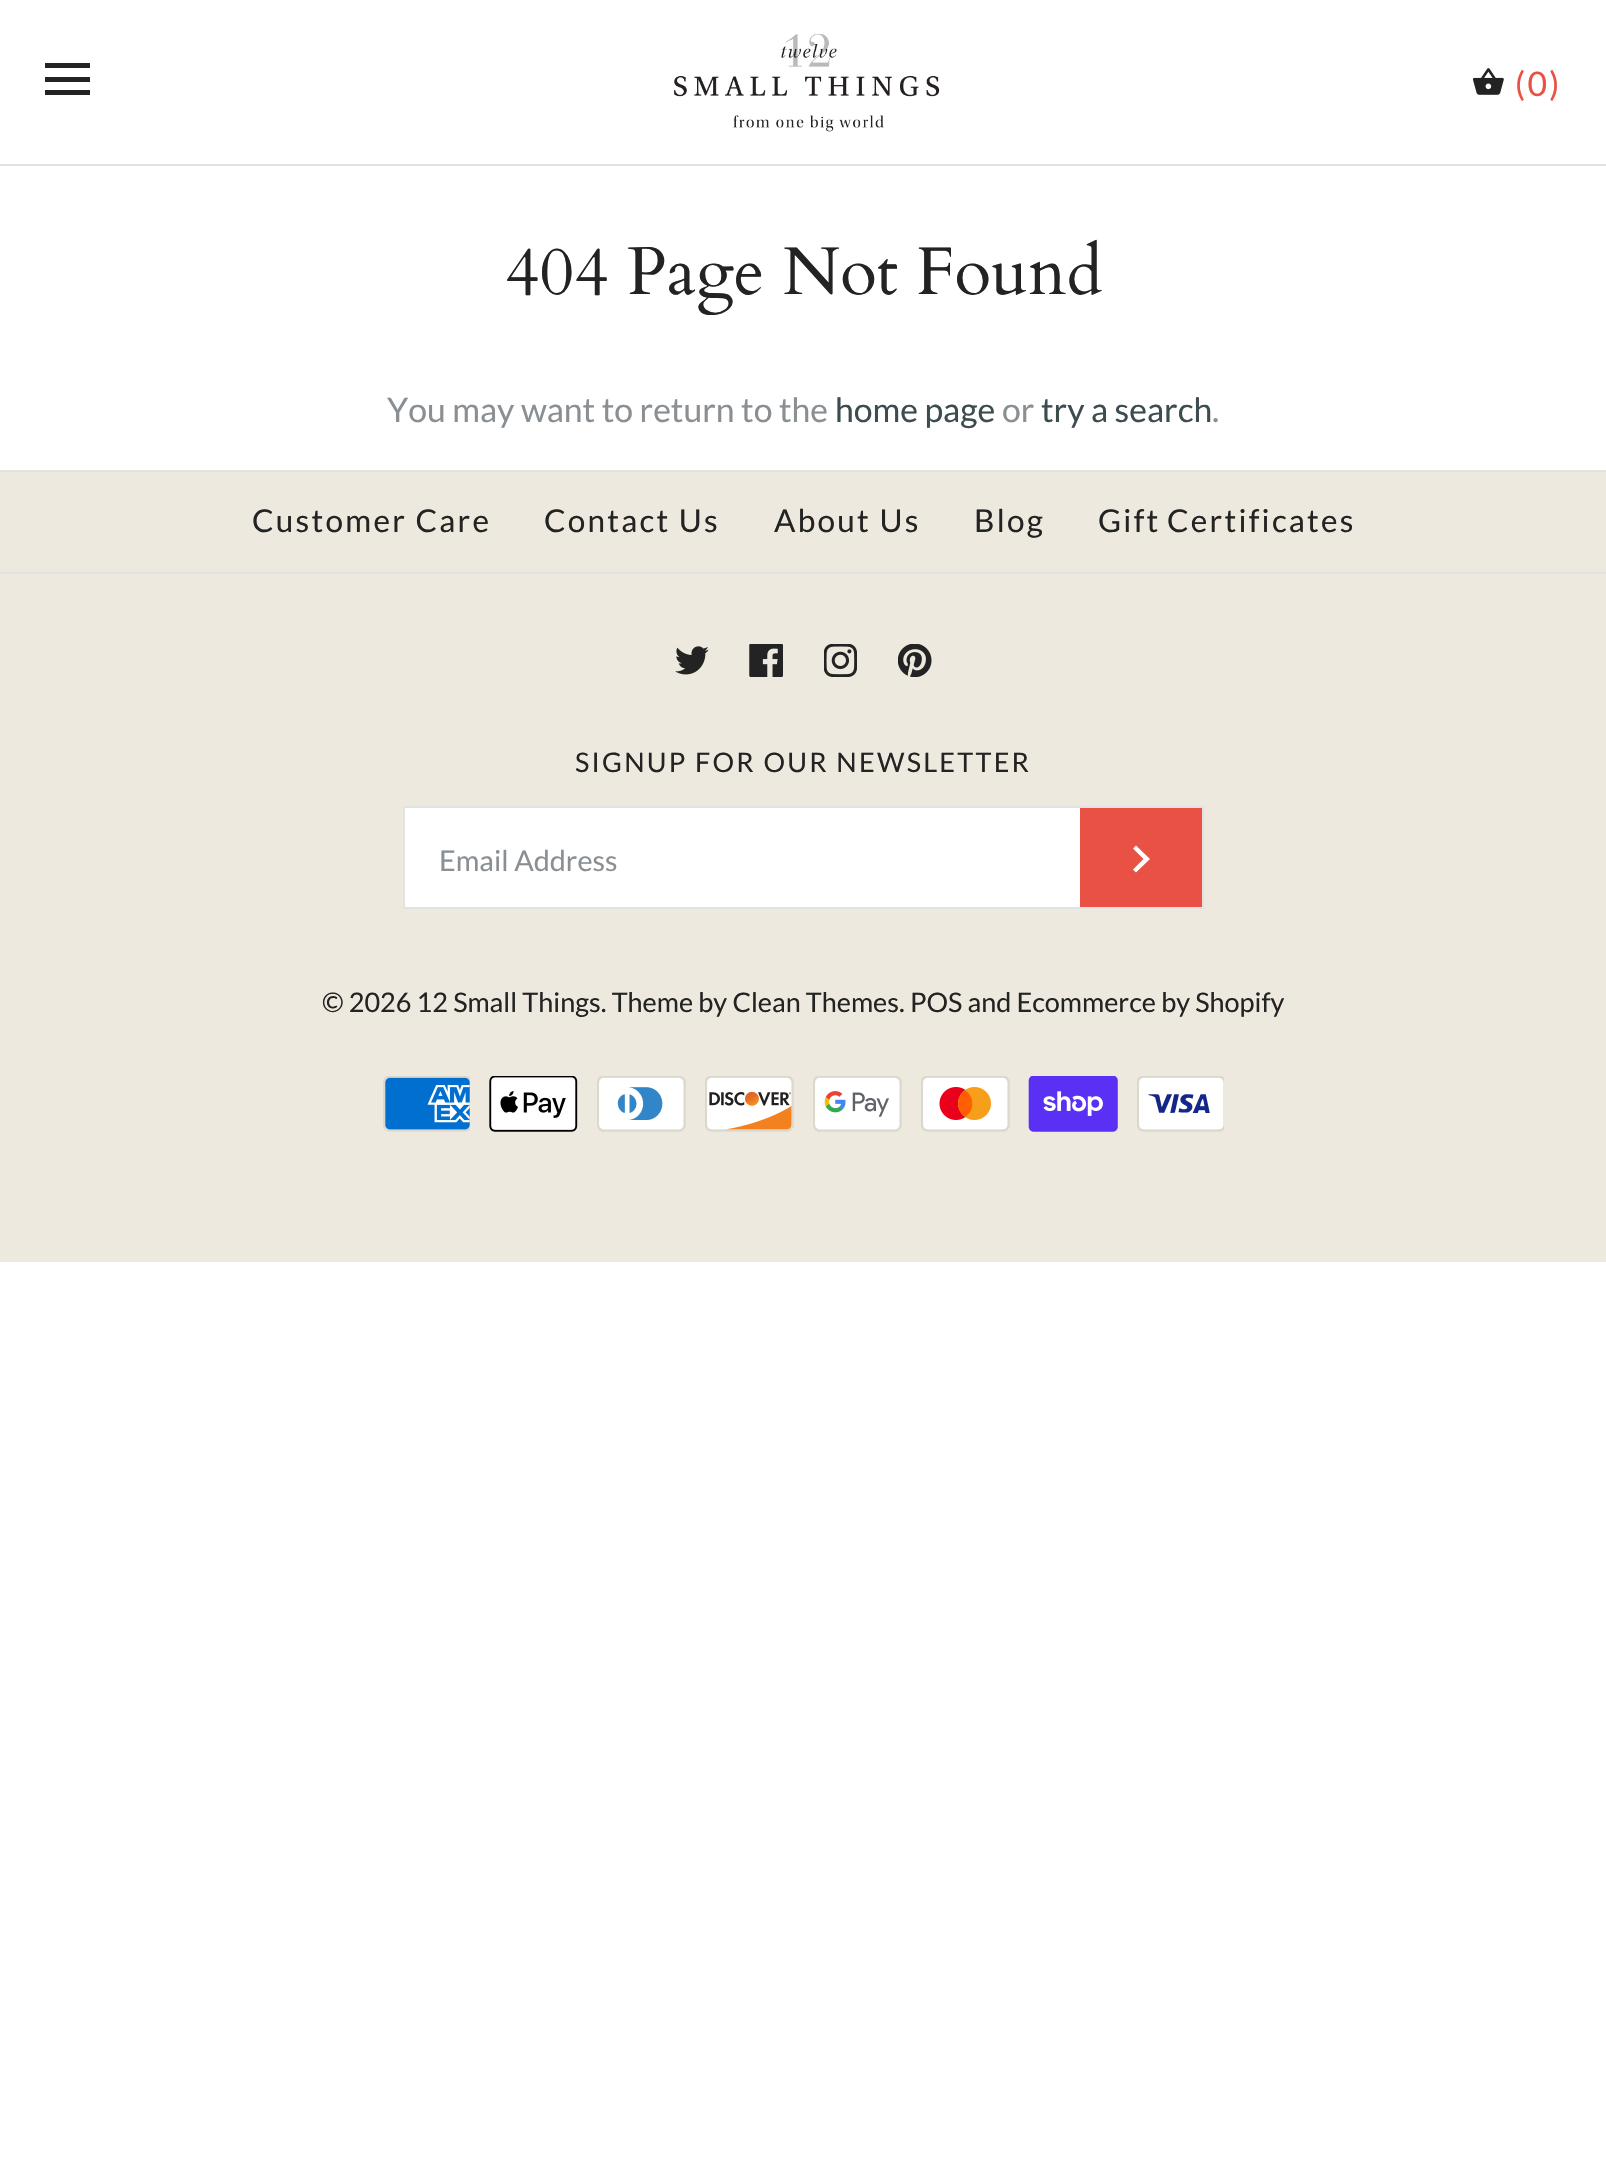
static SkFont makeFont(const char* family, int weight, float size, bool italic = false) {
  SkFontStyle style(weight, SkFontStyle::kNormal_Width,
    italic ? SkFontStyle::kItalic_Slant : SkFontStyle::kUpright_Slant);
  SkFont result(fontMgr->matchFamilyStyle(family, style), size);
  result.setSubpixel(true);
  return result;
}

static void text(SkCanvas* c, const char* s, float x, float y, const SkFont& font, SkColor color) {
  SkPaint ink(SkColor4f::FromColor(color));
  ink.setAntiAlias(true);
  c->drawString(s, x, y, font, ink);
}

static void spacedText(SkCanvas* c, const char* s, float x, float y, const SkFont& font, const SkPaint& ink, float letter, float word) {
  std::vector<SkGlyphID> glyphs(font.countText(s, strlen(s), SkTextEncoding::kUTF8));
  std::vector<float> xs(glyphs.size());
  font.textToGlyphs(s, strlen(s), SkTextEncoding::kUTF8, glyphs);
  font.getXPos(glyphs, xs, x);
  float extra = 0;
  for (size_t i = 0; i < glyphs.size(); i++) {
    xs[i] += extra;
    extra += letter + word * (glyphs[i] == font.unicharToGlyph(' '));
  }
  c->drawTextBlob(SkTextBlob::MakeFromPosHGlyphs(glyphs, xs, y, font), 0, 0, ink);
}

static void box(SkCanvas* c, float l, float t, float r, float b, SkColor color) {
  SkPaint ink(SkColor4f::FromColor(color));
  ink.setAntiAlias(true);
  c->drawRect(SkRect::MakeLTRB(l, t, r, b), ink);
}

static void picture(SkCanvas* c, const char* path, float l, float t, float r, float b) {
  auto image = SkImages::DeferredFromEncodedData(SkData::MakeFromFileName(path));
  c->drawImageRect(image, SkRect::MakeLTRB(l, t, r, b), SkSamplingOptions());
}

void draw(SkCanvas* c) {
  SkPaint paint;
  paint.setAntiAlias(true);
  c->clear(0xffffffff);
  box(c, 0, 164, 1606, 166, 0xffe2e2e2);
  box(c, 45, 63, 90, 68, 0xff232323);
  box(c, 45, 77, 90, 82, 0xff232323);
  box(c, 45, 90, 90, 95, 0xff232323);
  picture(c, "img_01.png", 673, 33, 940, 132);
  picture(c, "img_02.png", 1472, 68, 1504, 95);
  SkFont face1 = makeFont("Lato", 400, 33.75f);
  paint.setColor(0xffe95144);
  spacedText(c, "(0)", 1515, 96, face1, paint, 2.25f, 0);
  SkFont face2 = makeFont("Cardo", 400, 67.5f);
  text(c, "404 Page Not Found", 505, 294, face2, 0xff232323);
  text(c, "You may want to return to the", 387, 422, face1, 0xff8a8f93);
  text(c, "home page", 835, 422, face1, 0xff3d4c4f);
  text(c, "or", 1002, 422, face1, 0xff8a8f93);
  text(c, "try a search", 1041, 422, face1, 0xff3d4c4f);
  text(c, ".", 1212, 422, face1, 0xff8a8f93);
  box(c, 0, 472, 1606, 1262, 0xffede9de);
  box(c, 0, 470, 1606, 472, 0xffe2e2e2);
  box(c, 0, 572, 1606, 574, 0xffe2e2e2);
  SkFont face3 = makeFont("Lato", 400, 31.5f);
  paint.setColor(0xff232323);
  spacedText(c, "Customer Care", 252, 532, face3, paint, 2.25f, 0);
  spacedText(c, "Contact Us", 544, 532, face3, paint, 2.25f, 0);
  spacedText(c, "About Us", 774, 532, face3, paint, 2.25f, 0);
  spacedText(c, "Blog", 974, 532, face3, paint, 2.25f, 0);
  spacedText(c, "Gift Certificates", 1098, 532, face3, paint, 2.25f, -2);
  picture(c, "img_03.png", 675, 646, 709, 675);
  picture(c, "img_04.png", 749, 644, 783, 677);
  picture(c, "img_05.png", 824, 644, 857, 677);
  picture(c, "img_06.png", 898, 644, 932, 677);
  SkFont face4 = makeFont("Lato", 400, 27);
  spacedText(c, "SIGNUP FOR OUR NEWSLETTER", 575, 772, face4, paint, 2.25f, 0);
  box(c, 405, 808, 1080, 907, 0xffffffff);
  paint.setStyle(SkPaint::kStroke_Style);
  paint.setStrokeWidth(2);
  paint.setColor(0xffe2e2e2);
  c->drawRect(SkRect::MakeLTRB(404, 807, 1203, 908), paint);
  SkFont face5 = makeFont("Lato", 400, 28.75f);
  text(c, "Email Address", 439, 871, face5, 0xff8a8f93);
  box(c, 1080, 808, 1202, 907, 0xffe95144);
  paint.setStyle(SkPaint::kFill_Style);
  paint.setColor(0xffffffff);
  c->drawPath(SkPathBuilder().moveTo(1133, 869.5f).lineTo(1143.5f, 859).lineTo(1133, 848.5f).lineTo(1136, 845.5f).lineTo(1150, 859).lineTo(1136, 872.5f).close().detach(), paint);
  text(c, "© 2026 12 Small Things. Theme by Clean Themes. POS and Ecommerce by Shopify", 322, 1012, face4, 0xff232323);
  picture(c, "img_07.png", 383, 1076, 470, 1132);
  picture(c, "img_08.png", 489, 1076, 578, 1132);
  picture(c, "img_09.png", 597, 1076, 686, 1132);
  picture(c, "img_10.png", 705, 1076, 794, 1132);
  picture(c, "img_11.png", 813, 1076, 902, 1132);
  picture(c, "img_12.png", 921, 1076, 1010, 1132);
  picture(c, "img_13.png", 1028, 1076, 1118, 1132);
  picture(c, "img_14.png", 1137, 1076, 1224, 1132);
}
